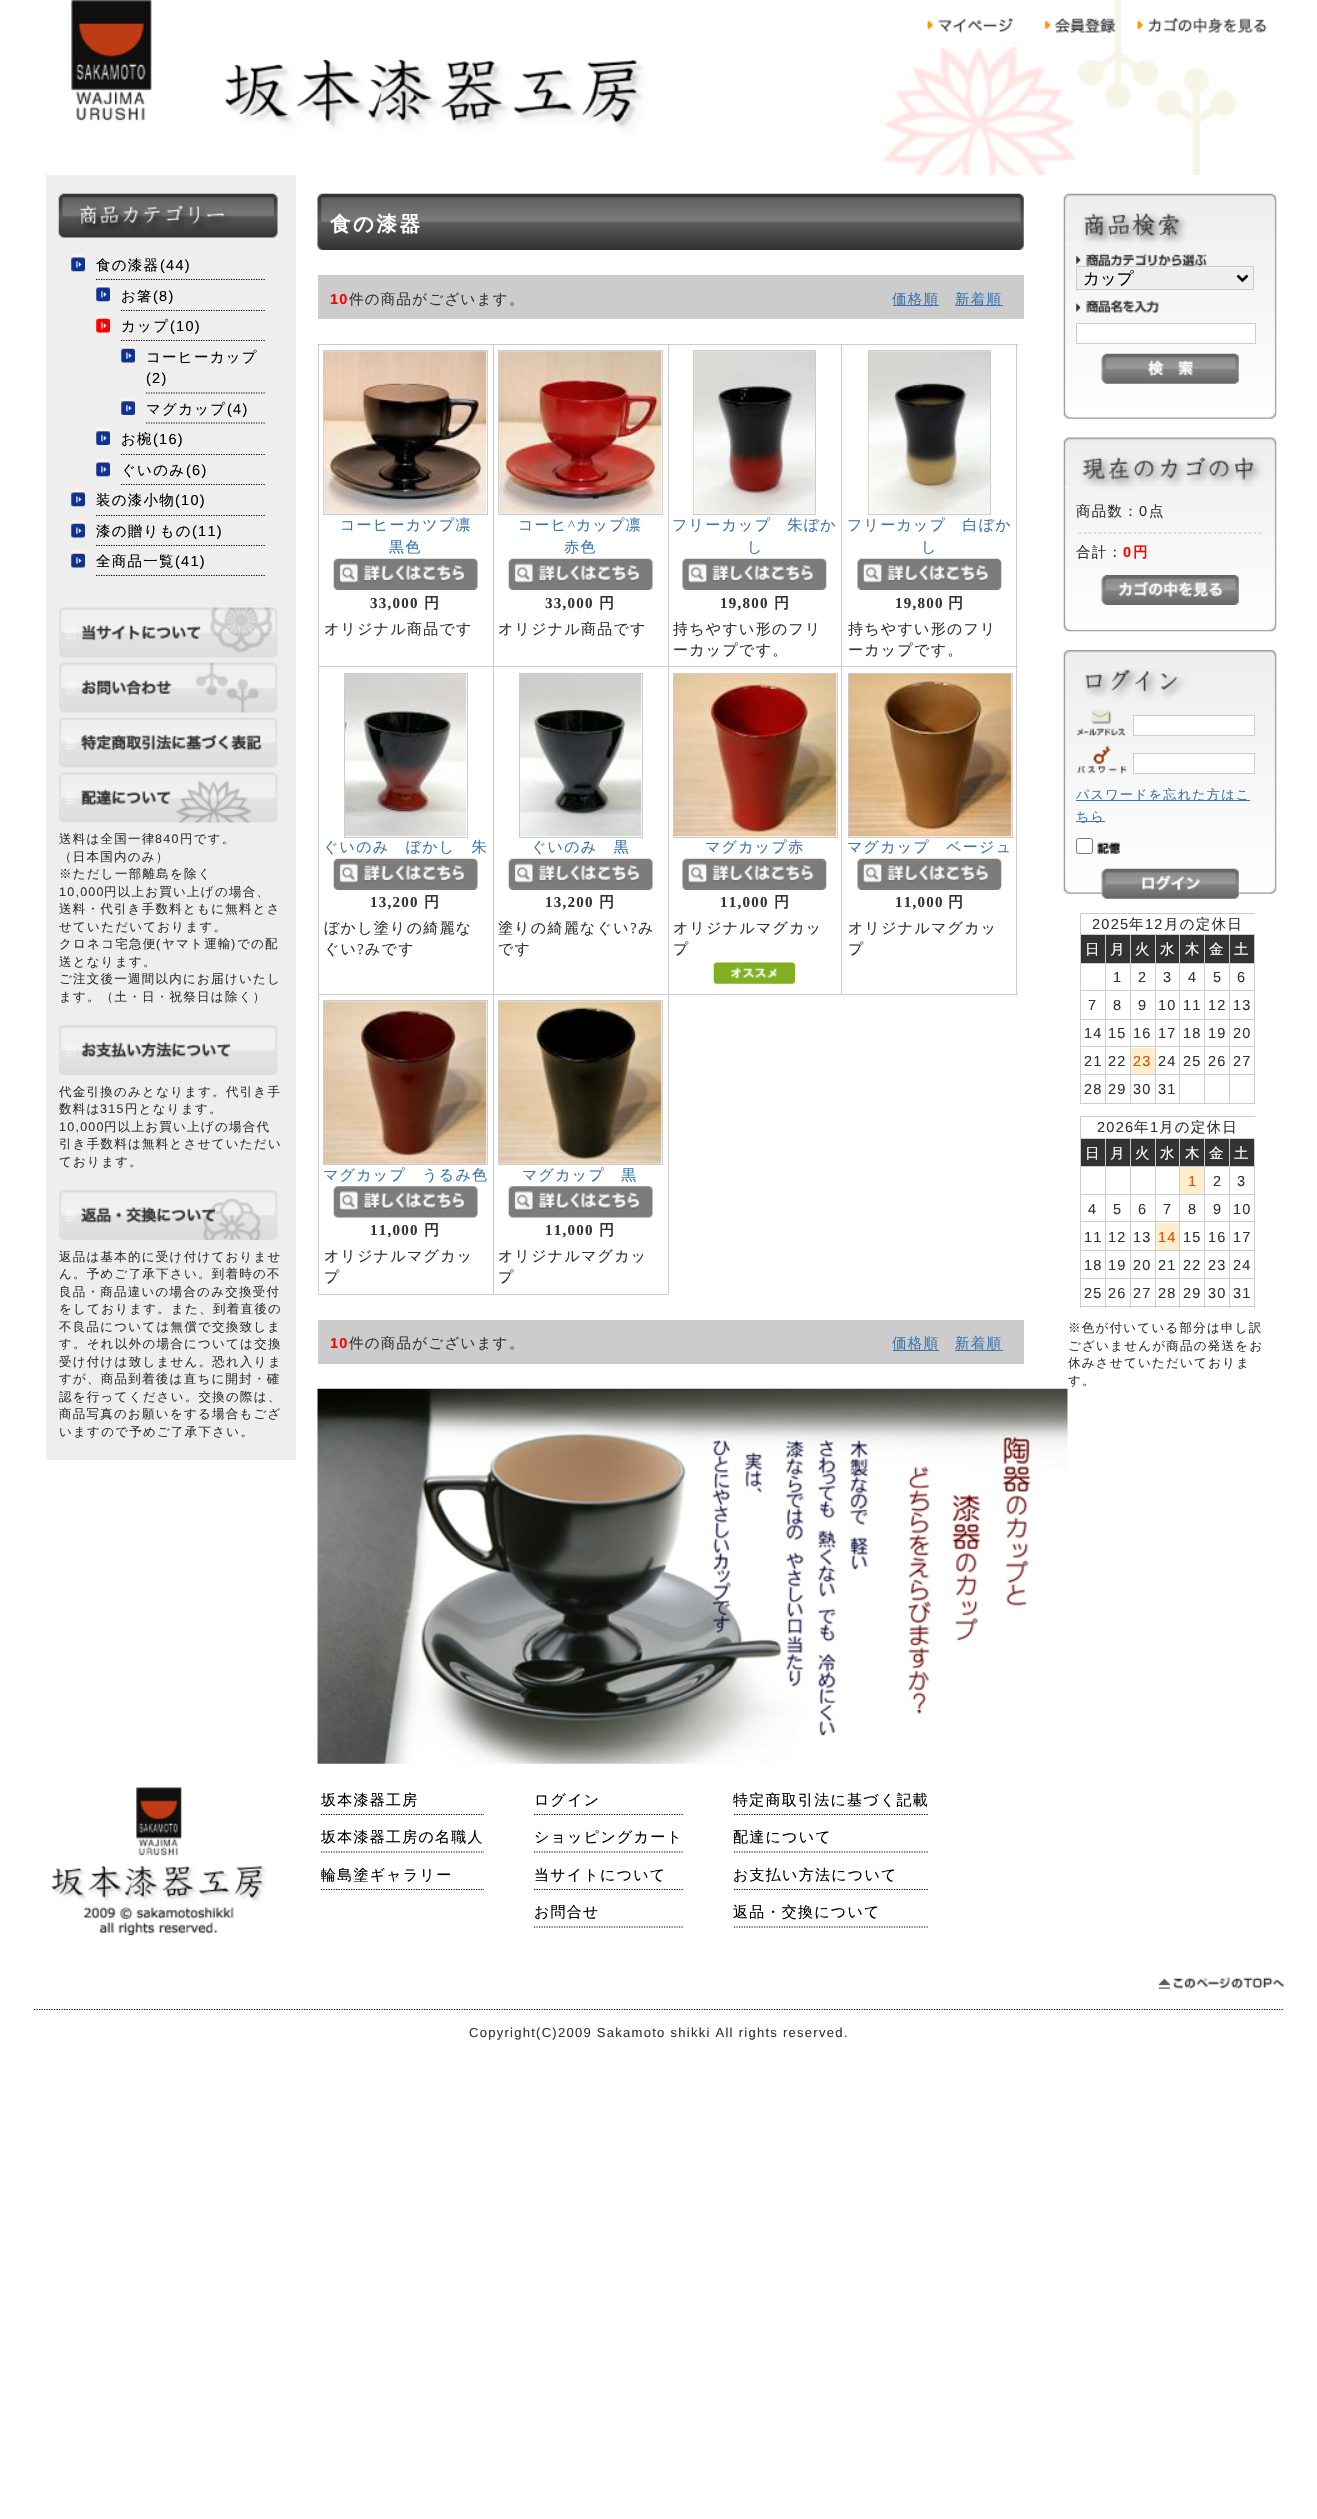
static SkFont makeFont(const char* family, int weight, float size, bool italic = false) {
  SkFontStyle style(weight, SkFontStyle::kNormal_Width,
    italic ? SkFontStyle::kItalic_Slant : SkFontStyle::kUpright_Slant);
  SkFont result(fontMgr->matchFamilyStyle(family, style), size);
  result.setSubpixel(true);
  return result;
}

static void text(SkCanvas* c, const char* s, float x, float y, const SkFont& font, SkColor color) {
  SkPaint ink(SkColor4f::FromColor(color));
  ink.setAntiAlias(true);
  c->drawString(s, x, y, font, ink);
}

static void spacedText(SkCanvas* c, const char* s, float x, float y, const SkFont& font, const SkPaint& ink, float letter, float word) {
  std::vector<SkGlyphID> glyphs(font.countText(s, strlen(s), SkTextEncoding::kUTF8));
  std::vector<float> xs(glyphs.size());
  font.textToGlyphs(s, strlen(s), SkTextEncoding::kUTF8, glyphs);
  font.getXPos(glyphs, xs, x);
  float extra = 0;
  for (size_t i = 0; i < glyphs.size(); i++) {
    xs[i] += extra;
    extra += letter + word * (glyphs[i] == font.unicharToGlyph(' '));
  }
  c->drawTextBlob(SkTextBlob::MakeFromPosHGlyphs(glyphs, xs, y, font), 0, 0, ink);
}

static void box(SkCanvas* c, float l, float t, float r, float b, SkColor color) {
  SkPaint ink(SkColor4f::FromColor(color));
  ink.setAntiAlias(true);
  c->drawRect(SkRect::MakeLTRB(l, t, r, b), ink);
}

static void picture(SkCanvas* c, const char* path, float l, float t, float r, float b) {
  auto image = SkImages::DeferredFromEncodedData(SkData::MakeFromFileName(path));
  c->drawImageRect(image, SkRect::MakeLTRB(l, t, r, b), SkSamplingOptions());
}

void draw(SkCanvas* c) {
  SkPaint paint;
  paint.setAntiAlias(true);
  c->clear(0xffffffff);
  picture(c, "img_01.png", 71, 0, 1237, 175);
  picture(c, "img_02.png", 927, 17, 1013, 33);
  picture(c, "img_03.png", 1044, 18, 1116, 34);
  picture(c, "img_04.png", 1137, 17, 1267, 33);
  box(c, 46, 175, 296, 1460, 0xffeeeeee);
  picture(c, "img_05.png", 58, 193, 278, 238);
  picture(c, "img_06.png", 71, 253, 85, 272);
  paint.setStyle(SkPaint::kStroke_Style);
  paint.setStrokeWidth(1.2f);
  paint.setColor(0xff000000);
  paint.setPathEffect(SkDashPathEffect::Make({{1.25f, 1.25f}}, 0));
  c->drawPath(SkPathBuilder().moveTo(96, 279.5f).lineTo(265, 279.5f).detach(), paint);
  paint.setPathEffect(nullptr);
  SkFont face1 = makeFont("WenQuanYi Zen Hei", 500, 14.5f);
  paint.setStyle(SkPaint::kFill_Style);
  spacedText(c, "食の漆器", 96, 270, face1, paint, 1.25f, 0);
  SkFont face2 = makeFont("Liberation Sans", 400, 14.5f);
  spacedText(c, "(44)", 160, 270, face2, paint, 1.25f, 0);
  picture(c, "img_07.png", 96, 283, 110, 302);
  paint.setStyle(SkPaint::kStroke_Style);
  paint.setPathEffect(SkDashPathEffect::Make({{1.25f, 1.25f}}, 0));
  c->drawPath(SkPathBuilder().moveTo(121, 310.5f).lineTo(265, 310.5f).detach(), paint);
  paint.setPathEffect(nullptr);
  paint.setStyle(SkPaint::kFill_Style);
  spacedText(c, "お箸", 121, 301, face1, paint, 1.25f, 0);
  spacedText(c, "(8)", 153, 301, face2, paint, 1.25f, 0);
  picture(c, "img_08.png", 96, 315, 110, 333);
  paint.setStyle(SkPaint::kStroke_Style);
  paint.setPathEffect(SkDashPathEffect::Make({{1.25f, 1.25f}}, 0));
  c->drawPath(SkPathBuilder().moveTo(121, 340.5f).lineTo(265, 340.5f).detach(), paint);
  paint.setPathEffect(nullptr);
  paint.setStyle(SkPaint::kFill_Style);
  spacedText(c, "カップ", 121, 331, face1, paint, 1.25f, 0);
  spacedText(c, "(10)", 170, 331, face2, paint, 1.25f, 0);
  picture(c, "img_09.png", 121, 345, 135, 363);
  paint.setStyle(SkPaint::kStroke_Style);
  paint.setPathEffect(SkDashPathEffect::Make({{1.25f, 1.25f}}, 0));
  c->drawPath(SkPathBuilder().moveTo(146, 393).lineTo(265, 393).detach(), paint);
  paint.setPathEffect(nullptr);
  paint.setStyle(SkPaint::kFill_Style);
  spacedText(c, "コーヒーカップ", 146, 362, face1, paint, 1.25f, 0);
  spacedText(c, "(2)", 146, 383, face2, paint, 1.25f, 0);
  picture(c, "img_10.png", 121, 397, 135, 415);
  paint.setStyle(SkPaint::kStroke_Style);
  paint.setPathEffect(SkDashPathEffect::Make({{1.25f, 1.25f}}, 0));
  c->drawPath(SkPathBuilder().moveTo(146, 423).lineTo(265, 423).detach(), paint);
  paint.setPathEffect(nullptr);
  paint.setStyle(SkPaint::kFill_Style);
  spacedText(c, "マグカップ", 146, 414, face1, paint, 1.25f, 0);
  spacedText(c, "(4)", 227, 414, face2, paint, 1.25f, 0);
  picture(c, "img_10.png", 96, 427, 110, 445);
  paint.setStyle(SkPaint::kStroke_Style);
  paint.setPathEffect(SkDashPathEffect::Make({{1.25f, 1.25f}}, 0));
  c->drawPath(SkPathBuilder().moveTo(121, 454.5f).lineTo(265, 454.5f).detach(), paint);
  paint.setPathEffect(nullptr);
  paint.setStyle(SkPaint::kFill_Style);
  spacedText(c, "お椀", 121, 444, face1, paint, 1.25f, 0);
  spacedText(c, "(16)", 153, 444, face2, paint, 1.25f, 0);
  picture(c, "img_06.png", 96, 458, 110, 477);
  paint.setStyle(SkPaint::kStroke_Style);
  paint.setPathEffect(SkDashPathEffect::Make({{1.25f, 1.25f}}, 0));
  c->drawPath(SkPathBuilder().moveTo(121, 484.5f).lineTo(265, 484.5f).detach(), paint);
  paint.setPathEffect(nullptr);
  paint.setStyle(SkPaint::kFill_Style);
  spacedText(c, "ぐいのみ", 121, 475, face1, paint, 1.25f, 0);
  spacedText(c, "(6)", 186, 475, face2, paint, 1.25f, 0);
  picture(c, "img_06.png", 71, 488, 85, 507);
  paint.setStyle(SkPaint::kStroke_Style);
  paint.setPathEffect(SkDashPathEffect::Make({{1.25f, 1.25f}}, 0));
  c->drawPath(SkPathBuilder().moveTo(96, 515.5f).lineTo(265, 515.5f).detach(), paint);
  paint.setPathEffect(nullptr);
  paint.setStyle(SkPaint::kFill_Style);
  spacedText(c, "装の漆小物", 96, 505, face1, paint, 1.25f, 0);
  spacedText(c, "(10)", 175, 505, face2, paint, 1.25f, 0);
  picture(c, "img_09.png", 71, 520, 85, 538);
  paint.setStyle(SkPaint::kStroke_Style);
  paint.setPathEffect(SkDashPathEffect::Make({{1.25f, 1.25f}}, 0));
  c->drawPath(SkPathBuilder().moveTo(96, 545.5f).lineTo(265, 545.5f).detach(), paint);
  paint.setPathEffect(nullptr);
  paint.setStyle(SkPaint::kFill_Style);
  spacedText(c, "漆の贈りもの", 96, 536, face1, paint, 1.25f, 0);
  spacedText(c, "(11)", 192, 536, face2, paint, 1.25f, 0);
  picture(c, "img_09.png", 71, 550, 85, 568);
  paint.setStyle(SkPaint::kStroke_Style);
  paint.setPathEffect(SkDashPathEffect::Make({{1.25f, 1.25f}}, 0));
  c->drawPath(SkPathBuilder().moveTo(96, 575.5f).lineTo(265, 575.5f).detach(), paint);
  paint.setPathEffect(nullptr);
  paint.setStyle(SkPaint::kFill_Style);
  spacedText(c, "全商品一覧", 96, 566, face1, paint, 1.25f, 0);
  spacedText(c, "(41)", 175, 566, face2, paint, 1.25f, 0);
  picture(c, "img_11.png", 59, 607, 278, 658);
  picture(c, "img_12.png", 59, 662, 278, 713);
  picture(c, "img_13.png", 59, 717, 278, 768);
  picture(c, "img_14.png", 59, 772, 278, 823);
  SkFont face3 = makeFont("WenQuanYi Zen Hei", 500, 12.5f);
  paint.setColor(0xff333333);
  spacedText(c, "送料は全国一律", 59, 843, face3, paint, 1.25f, 0);
  SkFont face4 = makeFont("Liberation Sans", 400, 12.5f);
  spacedText(c, "840", 155, 843, face4, paint, 1.25f, 0);
  spacedText(c, "円です。", 180, 843, face3, paint, 1.25f, 0);
  spacedText(c, "（日本国内のみ）", 59, 861, face3, paint, 1.25f, 0);
  spacedText(c, "※ただし一部離島を除く", 59, 878, face3, paint, 1.25f, 0);
  spacedText(c, "10,000", 59, 896, face4, paint, 1.25f, 0);
  spacedText(c, "円以上お買い上げの場合、", 104, 896, face3, paint, 1.25f, 0);
  spacedText(c, "送料・代引き手数料ともに無料とさ", 59, 913, face3, paint, 1.25f, 0);
  spacedText(c, "せていただいております。", 59, 931, face3, paint, 1.25f, 0);
  spacedText(c, "クロネコ宅急便", 59, 948, face3, paint, 1.25f, 0);
  spacedText(c, "(", 156, 948, face4, paint, 1.25f, 0);
  spacedText(c, "ヤマト運輸", 162, 948, face3, paint, 1.25f, 0);
  spacedText(c, ")", 231, 948, face4, paint, 1.25f, 0);
  spacedText(c, "での配", 237, 948, face3, paint, 1.25f, 0);
  spacedText(c, "送となります。", 59, 966, face3, paint, 1.25f, 0);
  spacedText(c, "ご注文後一週間以内にお届けいたし", 59, 983, face3, paint, 1.25f, 0);
  spacedText(c, "ます。（土・日・祝祭日は除く）", 59, 1001, face3, paint, 1.25f, 0);
  picture(c, "img_15.png", 59, 1025, 278, 1075);
  spacedText(c, "代金引換のみとなります。代引き手", 59, 1096, face3, paint, 1.25f, 0);
  spacedText(c, "数料は", 59, 1113, face3, paint, 1.25f, 0);
  spacedText(c, "315", 100, 1113, face4, paint, 1.25f, 0);
  spacedText(c, "円となります。", 125, 1113, face3, paint, 1.25f, 0);
  spacedText(c, "10,000", 59, 1131, face4, paint, 1.25f, 0);
  spacedText(c, "円以上お買い上げの場合代", 104, 1131, face3, paint, 1.25f, 0);
  spacedText(c, "引き手数料は無料とさせていただい", 59, 1148, face3, paint, 1.25f, 0);
  spacedText(c, "ております。", 59, 1166, face3, paint, 1.25f, 0);
  picture(c, "img_16.png", 59, 1190, 278, 1240);
  spacedText(c, "返品は基本的に受け付けておりませ", 59, 1261, face3, paint, 1.25f, 0);
  spacedText(c, "ん。予めご了承下さい。到着時の不", 59, 1278, face3, paint, 1.25f, 0);
  spacedText(c, "良品・商品違いの場合のみ交換受付", 59, 1296, face3, paint, 1.25f, 0);
  spacedText(c, "をしております。また、到着直後の", 59, 1313, face3, paint, 1.25f, 0);
  spacedText(c, "不良品については無償で交換致しま", 59, 1331, face3, paint, 1.25f, 0);
  spacedText(c, "す。それ以外の場合については交換", 59, 1348, face3, paint, 1.25f, 0);
  spacedText(c, "受け付けは致しません。恐れ入りま", 59, 1366, face3, paint, 1.25f, 0);
  spacedText(c, "すが、商品到着後は直ちに開封・確", 59, 1383, face3, paint, 1.25f, 0);
  spacedText(c, "認を行ってください。交換の際は、", 59, 1401, face3, paint, 1.25f, 0);
  spacedText(c, "商品写真のお願いをする場合もござ", 59, 1418, face3, paint, 1.25f, 0);
  spacedText(c, "いますので予めご了承下さい。", 59, 1436, face3, paint, 1.25f, 0);
  picture(c, "img_17.png", 317, 193, 1024, 250);
  SkFont face5 = makeFont("WenQuanYi Zen Hei", 700, 20.5f);
  paint.setColor(0xffffffff);
  spacedText(c, "食の漆器", 330, 231, face5, paint, 2.5f, 0);
  box(c, 318, 275, 1024, 319, 0xffcccccc);
  SkFont face6 = makeFont("Liberation Sans", 700, 14.5f);
  paint.setColor(0xffff0000);
  spacedText(c, "10", 330, 304, face6, paint, 1.25f, 0);
  paint.setColor(0xff333333);
  spacedText(c, "件の商品がございます。", 349, 304, face1, paint, 1.25f, 0);
  box(c, 893, 305, 939, 306, 0xff3a75af);
  paint.setColor(0xff3a75af);
  spacedText(c, "価格順", 892, 304, face1, paint, 1.25f, 0);
  box(c, 955, 305, 1003, 306, 0xff3a75af);
  spacedText(c, "新着順", 955, 304, face1, paint, 1.25f, 0);
  box(c, 318, 344, 1018, 345, 0xffcccccc);
  box(c, 318, 344, 319, 1295, 0xffcccccc);
  box(c, 1016, 344, 1017, 995, 0xffcccccc);
  box(c, 841, 994, 1018, 995, 0xffcccccc);
  box(c, 841, 666, 842, 995, 0xffcccccc);
  box(c, 841, 666, 1018, 667, 0xffcccccc);
  box(c, 841, 344, 842, 668, 0xffcccccc);
  box(c, 668, 994, 669, 1295, 0xffcccccc);
  box(c, 668, 994, 843, 995, 0xffcccccc);
  box(c, 668, 666, 669, 995, 0xffcccccc);
  box(c, 668, 666, 843, 667, 0xffcccccc);
  box(c, 668, 344, 669, 668, 0xffcccccc);
  box(c, 493, 1294, 669, 1295, 0xffcccccc);
  box(c, 493, 994, 494, 1295, 0xffcccccc);
  box(c, 493, 994, 669, 995, 0xffcccccc);
  box(c, 493, 666, 494, 995, 0xffcccccc);
  box(c, 493, 666, 669, 667, 0xffcccccc);
  box(c, 493, 344, 494, 668, 0xffcccccc);
  box(c, 318, 666, 494, 667, 0xffcccccc);
  paint.setStyle(SkPaint::kStroke_Style);
  paint.setStrokeWidth(1);
  paint.setColor(0xffcccccc);
  c->drawRect(SkRect::MakeLTRB(323.5f, 350.5f, 487.5f, 514.5f), paint);
  picture(c, "img_18.png", 323, 351, 487, 514);
  SkFont face7 = makeFont("WenQuanYi Zen Hei", 500, 15);
  paint.setStyle(SkPaint::kFill_Style);
  paint.setColor(0xff3a75af);
  spacedText(c, "コーヒーカツプ凛", 340, 530, face7, paint, 1.25f, 0);
  spacedText(c, "黒色", 389, 552, face7, paint, 1.25f, 0);
  picture(c, "img_19.png", 333, 558, 478, 590);
  SkFont face8 = makeFont("Liberation Serif", 700, 15);
  paint.setColor(0xff333333);
  spacedText(c, "33,000", 370, 608, face8, paint, 1.25f, 0);
  SkFont face9 = makeFont("WenQuanYi Zen Hei", 700, 15);
  spacedText(c, "円", 424, 608, face9, paint, 1.25f, 0);
  spacedText(c, "オリジナル商品です", 324, 634, face7, paint, 1.25f, 0);
  paint.setStyle(SkPaint::kStroke_Style);
  paint.setColor(0xffcccccc);
  c->drawRect(SkRect::MakeLTRB(498.5f, 350.5f, 662.5f, 514.5f), paint);
  picture(c, "img_20.png", 498, 351, 662, 514);
  paint.setStyle(SkPaint::kFill_Style);
  paint.setColor(0xff3a75af);
  spacedText(c, "コーヒ", 518, 530, face7, paint, 1.25f, 0);
  SkFont face10 = makeFont("Liberation Serif", 400, 15);
  spacedText(c, "^", 568, 530, face10, paint, 1.25f, 0);
  spacedText(c, "カップ凛", 576, 530, face7, paint, 1.25f, 0);
  spacedText(c, "赤色", 564, 552, face7, paint, 1.25f, 0);
  picture(c, "img_21.png", 508, 558, 653, 590);
  paint.setColor(0xff333333);
  spacedText(c, "33,000", 545, 608, face8, paint, 1.25f, 0);
  spacedText(c, "円", 599, 608, face9, paint, 1.25f, 0);
  spacedText(c, "オリジナル商品です", 498, 634, face7, paint, 1.25f, 0);
  paint.setStyle(SkPaint::kStroke_Style);
  paint.setColor(0xffcccccc);
  c->drawRect(SkRect::MakeLTRB(693.5f, 350.5f, 815.5f, 514.5f), paint);
  picture(c, "img_22.png", 693, 351, 815, 514);
  paint.setStyle(SkPaint::kFill_Style);
  paint.setColor(0xff3a75af);
  spacedText(c, "フリーカップ　朱ぼか", 672, 530, face7, paint, 1.25f, 0);
  spacedText(c, "し", 747, 552, face7, paint, 1.25f, 0);
  picture(c, "img_23.png", 682, 558, 827, 590);
  paint.setColor(0xff333333);
  spacedText(c, "19,800", 720, 608, face8, paint, 1.25f, 0);
  spacedText(c, "円", 774, 608, face9, paint, 1.25f, 0);
  spacedText(c, "持ちやすい形のフリ", 673, 634, face7, paint, 1.25f, 0);
  spacedText(c, "ーカップです。", 673, 655, face7, paint, 1.25f, 0);
  paint.setStyle(SkPaint::kStroke_Style);
  paint.setColor(0xffcccccc);
  c->drawRect(SkRect::MakeLTRB(868.5f, 350.5f, 990.5f, 514.5f), paint);
  picture(c, "img_24.png", 868, 351, 990, 514);
  paint.setStyle(SkPaint::kFill_Style);
  paint.setColor(0xff3a75af);
  spacedText(c, "フリーカップ　白ぼか", 847, 530, face7, paint, 1.25f, 0);
  spacedText(c, "し", 921, 552, face7, paint, 1.25f, 0);
  picture(c, "img_23.png", 857, 558, 1002, 590);
  paint.setColor(0xff333333);
  spacedText(c, "19,800", 895, 608, face8, paint, 1.25f, 0);
  spacedText(c, "円", 948, 608, face9, paint, 1.25f, 0);
  spacedText(c, "持ちやすい形のフリ", 848, 634, face7, paint, 1.25f, 0);
  spacedText(c, "ーカップです。", 848, 655, face7, paint, 1.25f, 0);
  box(c, 318, 994, 494, 995, 0xffcccccc);
  paint.setStyle(SkPaint::kStroke_Style);
  paint.setColor(0xffcccccc);
  c->drawRect(SkRect::MakeLTRB(344.5f, 673.5f, 467.5f, 837.5f), paint);
  picture(c, "img_25.png", 345, 673, 467, 837);
  paint.setStyle(SkPaint::kFill_Style);
  paint.setColor(0xff3a75af);
  spacedText(c, "ぐいのみ　ぼかし　朱", 323, 852, face7, paint, 1.25f, 0);
  picture(c, "img_19.png", 333, 858, 478, 890);
  paint.setColor(0xff333333);
  spacedText(c, "13,200", 370, 907, face8, paint, 1.25f, 0);
  spacedText(c, "円", 424, 907, face9, paint, 1.25f, 0);
  spacedText(c, "ぼかし塗りの綺麗な", 324, 933, face7, paint, 1.25f, 0);
  spacedText(c, "ぐい", 324, 954, face7, paint, 1.25f, 0);
  spacedText(c, "?", 357, 954, face10, paint, 1.25f, 0);
  spacedText(c, "みです", 365, 954, face7, paint, 1.25f, 0);
  paint.setStyle(SkPaint::kStroke_Style);
  paint.setColor(0xffcccccc);
  c->drawRect(SkRect::MakeLTRB(519.5f, 673.5f, 642.5f, 837.5f), paint);
  picture(c, "img_26.png", 520, 674, 642, 837);
  paint.setStyle(SkPaint::kFill_Style);
  paint.setColor(0xff3a75af);
  spacedText(c, "ぐいのみ　黒", 531, 852, face7, paint, 1.25f, 0);
  picture(c, "img_21.png", 508, 858, 653, 890);
  paint.setColor(0xff333333);
  spacedText(c, "13,200", 545, 907, face8, paint, 1.25f, 0);
  spacedText(c, "円", 599, 907, face9, paint, 1.25f, 0);
  spacedText(c, "塗りの綺麗なぐい", 498, 933, face7, paint, 1.25f, 0);
  spacedText(c, "?", 630, 933, face10, paint, 1.25f, 0);
  spacedText(c, "み", 638, 933, face7, paint, 1.25f, 0);
  spacedText(c, "です", 498, 954, face7, paint, 1.25f, 0);
  paint.setStyle(SkPaint::kStroke_Style);
  paint.setColor(0xffcccccc);
  c->drawRect(SkRect::MakeLTRB(673.5f, 673.5f, 837.5f, 837.5f), paint);
  picture(c, "img_27.png", 673, 673, 837, 837);
  paint.setStyle(SkPaint::kFill_Style);
  paint.setColor(0xff3a75af);
  spacedText(c, "マグカップ赤", 705, 852, face7, paint, 1.25f, 0);
  picture(c, "img_23.png", 682, 858, 827, 890);
  paint.setColor(0xff333333);
  spacedText(c, "11,000", 720, 907, face8, paint, 1.25f, 0);
  spacedText(c, "円", 774, 907, face9, paint, 1.25f, 0);
  spacedText(c, "オリジナルマグカッ", 673, 933, face7, paint, 1.25f, 0);
  spacedText(c, "プ", 673, 954, face7, paint, 1.25f, 0);
  picture(c, "img_28.png", 713, 962, 795, 984);
  paint.setStyle(SkPaint::kStroke_Style);
  paint.setColor(0xffcccccc);
  c->drawRect(SkRect::MakeLTRB(848.5f, 673.5f, 1012.5f, 837.5f), paint);
  picture(c, "img_29.png", 848, 673, 1012, 837);
  paint.setStyle(SkPaint::kFill_Style);
  paint.setColor(0xff3a75af);
  spacedText(c, "マグカップ　ベージュ", 847, 852, face7, paint, 1.25f, 0);
  picture(c, "img_23.png", 857, 858, 1002, 890);
  paint.setColor(0xff333333);
  spacedText(c, "11,000", 895, 907, face8, paint, 1.25f, 0);
  spacedText(c, "円", 948, 907, face9, paint, 1.25f, 0);
  spacedText(c, "オリジナルマグカッ", 848, 933, face7, paint, 1.25f, 0);
  spacedText(c, "プ", 848, 954, face7, paint, 1.25f, 0);
  box(c, 318, 1294, 494, 1295, 0xffcccccc);
  paint.setStyle(SkPaint::kStroke_Style);
  paint.setColor(0xffcccccc);
  c->drawRect(SkRect::MakeLTRB(323.5f, 1000.5f, 487.5f, 1164.5f), paint);
  picture(c, "img_30.png", 323, 1001, 487, 1164);
  paint.setStyle(SkPaint::kFill_Style);
  paint.setColor(0xff3a75af);
  spacedText(c, "マグカップ　うるみ色", 323, 1180, face7, paint, 1.25f, 0);
  picture(c, "img_31.png", 333, 1186, 478, 1218);
  paint.setColor(0xff333333);
  spacedText(c, "11,000", 370, 1235, face8, paint, 1.25f, 0);
  spacedText(c, "円", 424, 1235, face9, paint, 1.25f, 0);
  spacedText(c, "オリジナルマグカッ", 324, 1261, face7, paint, 1.25f, 0);
  spacedText(c, "プ", 324, 1282, face7, paint, 1.25f, 0);
  paint.setStyle(SkPaint::kStroke_Style);
  paint.setColor(0xffcccccc);
  c->drawRect(SkRect::MakeLTRB(498.5f, 1000.5f, 662.5f, 1164.5f), paint);
  picture(c, "img_32.png", 498, 1001, 662, 1164);
  paint.setStyle(SkPaint::kFill_Style);
  paint.setColor(0xff3a75af);
  spacedText(c, "マグカップ　黒", 522, 1180, face7, paint, 1.25f, 0);
  picture(c, "img_33.png", 508, 1186, 653, 1218);
  paint.setColor(0xff333333);
  spacedText(c, "11,000", 545, 1235, face8, paint, 1.25f, 0);
  spacedText(c, "円", 599, 1235, face9, paint, 1.25f, 0);
  spacedText(c, "オリジナルマグカッ", 498, 1261, face7, paint, 1.25f, 0);
  spacedText(c, "プ", 498, 1282, face7, paint, 1.25f, 0);
  box(c, 318, 1320, 1024, 1364, 0xffcccccc);
  paint.setColor(0xffff0000);
  spacedText(c, "10", 330, 1348, face6, paint, 1.25f, 0);
  paint.setColor(0xff333333);
  spacedText(c, "件の商品がございます。", 349, 1348, face1, paint, 1.25f, 0);
  box(c, 893, 1350, 939, 1351, 0xff3a75af);
  paint.setColor(0xff3a75af);
  spacedText(c, "価格順", 892, 1348, face1, paint, 1.25f, 0);
  box(c, 955, 1350, 1003, 1351, 0xff3a75af);
  spacedText(c, "新着順", 955, 1348, face1, paint, 1.25f, 0);
  picture(c, "img_34.png", 317, 1388, 1068, 1764);
  picture(c, "img_36.png", 1063, 243, 1277, 419);
  picture(c, "img_35.png", 1063, 193, 1277, 244);
  picture(c, "img_37.png", 1076, 253, 1207, 266);
  paint.setColor(0xffefefef);
  c->drawRect(SkRect::MakeLTRB(1076.5f, 266.5f, 1253.5f, 289.5f), paint);
  paint.setStyle(SkPaint::kStroke_Style);
  paint.setColor(0xffcccccc);
  c->drawRect(SkRect::MakeLTRB(1076.5f, 266.5f, 1253.5f, 289.5f), paint);
  paint.setStrokeWidth(2.5f);
  paint.setColor(0xff000000);
  c->drawPath(SkPathBuilder().moveTo(1237.5f, 275.5f).lineTo(1242.5f, 280.5f).lineTo(1247.5f, 275.5f).detach(), paint);
  SkFont face11 = makeFont("WenQuanYi Zen Hei", 500, 16.5f);
  text(c, "カップ", 1083, 284, face11, 0xff000000);
  picture(c, "img_38.png", 1076, 300, 1159, 313);
  paint.setStyle(SkPaint::kFill_Style);
  paint.setColor(0xffffffff);
  c->drawRect(SkRect::MakeLTRB(1076.5f, 323.5f, 1255.5f, 343.5f), paint);
  paint.setStyle(SkPaint::kStroke_Style);
  paint.setStrokeWidth(1);
  paint.setColor(0xffcccccc);
  c->drawRect(SkRect::MakeLTRB(1076.5f, 323.5f, 1255.5f, 343.5f), paint);
  picture(c, "img_39.png", 1101, 353, 1239, 384);
  picture(c, "img_41.png", 1063, 487, 1277, 632);
  picture(c, "img_40.png", 1063, 437, 1277, 488);
  picture(c, "img_42.png", 1078, 532, 1262, 534);
  paint.setStyle(SkPaint::kFill_Style);
  paint.setColor(0xff333333);
  spacedText(c, "商品数：", 1076, 516, face1, paint, 1.25f, 0);
  spacedText(c, "0", 1139, 516, face2, paint, 1.25f, 0);
  spacedText(c, "点", 1149, 516, face1, paint, 1.25f, 0);
  spacedText(c, "合計：", 1076, 557, face1, paint, 1.25f, 0);
  paint.setColor(0xffff0000);
  spacedText(c, "0", 1123, 557, face6, paint, 1.25f, 0);
  SkFont face12 = makeFont("WenQuanYi Zen Hei", 700, 14.5f);
  spacedText(c, "円", 1133, 557, face12, paint, 1.25f, 0);
  picture(c, "img_43.png", 1101, 575, 1239, 605);
  picture(c, "img_44.png", 1063, 650, 1277, 700);
  picture(c, "img_45.png", 1063, 700, 1277, 894);
  picture(c, "img_46.png", 1076, 710, 1126, 737);
  paint.setColor(0xffffffff);
  c->drawRect(SkRect::MakeLTRB(1133.5f, 715.5f, 1254.5f, 735.5f), paint);
  paint.setStyle(SkPaint::kStroke_Style);
  paint.setColor(0xffcccccc);
  c->drawRect(SkRect::MakeLTRB(1133.5f, 715.5f, 1254.5f, 735.5f), paint);
  picture(c, "img_47.png", 1077, 746, 1127, 774);
  paint.setStyle(SkPaint::kFill_Style);
  paint.setColor(0xffffffff);
  c->drawRect(SkRect::MakeLTRB(1133.5f, 753.5f, 1254.5f, 773.5f), paint);
  paint.setStyle(SkPaint::kStroke_Style);
  paint.setColor(0xffcccccc);
  c->drawRect(SkRect::MakeLTRB(1133.5f, 753.5f, 1254.5f, 773.5f), paint);
  box(c, 1076, 800, 1250, 801, 0xff3a75af);
  SkFont face13 = makeFont("WenQuanYi Zen Hei", 500, 13.05f);
  paint.setStyle(SkPaint::kFill_Style);
  paint.setColor(0xff3a75af);
  spacedText(c, "パスワードを忘れた方はこ", 1076, 799, face13, paint, 1.25f, 0);
  box(c, 1076, 821, 1105, 822, 0xff3a75af);
  spacedText(c, "ちら", 1076, 821, face13, paint, 1.25f, 0);
  paint.setColor(0xffffffff);
  c->drawRoundRect(SkRect::MakeLTRB(1076.5f, 838.5f, 1092.5f, 853.5f), 2, 2, paint);
  paint.setStyle(SkPaint::kStroke_Style);
  paint.setColor(0xff767676);
  c->drawRoundRect(SkRect::MakeLTRB(1076.5f, 838.5f, 1092.5f, 853.5f), 2, 2, paint);
  picture(c, "img_48.png", 1097, 842, 1120, 854);
  picture(c, "img_49.png", 1101, 868, 1239, 899);
  box(c, 1080, 913, 1255, 914, 0xffcccccc);
  box(c, 1080, 913, 1081, 1104, 0xffcccccc);
  paint.setStyle(SkPaint::kFill_Style);
  paint.setColor(0xff333333);
  spacedText(c, "2025", 1092, 929, face2, paint, 1.25f, 0);
  spacedText(c, "年", 1129, 929, face1, paint, 1.25f, 0);
  spacedText(c, "12", 1145, 929, face2, paint, 1.25f, 0);
  spacedText(c, "月の定休日", 1164, 929, face1, paint, 1.25f, 0);
  box(c, 1081, 935, 1105, 963, 0xff333333);
  box(c, 1229, 934, 1255, 935, 0xffcccccc);
  box(c, 1229, 963, 1255, 964, 0xffcccccc);
  box(c, 1229, 990, 1255, 991, 0xffcccccc);
  box(c, 1229, 1019, 1255, 1020, 0xffcccccc);
  box(c, 1229, 1046, 1255, 1047, 0xffcccccc);
  box(c, 1229, 1074, 1255, 1075, 0xffcccccc);
  box(c, 1254, 1074, 1255, 1104, 0xffcccccc);
  box(c, 1229, 1103, 1255, 1104, 0xffcccccc);
  box(c, 1229, 1074, 1230, 1104, 0xffcccccc);
  box(c, 1204, 1074, 1230, 1075, 0xffcccccc);
  box(c, 1229, 1046, 1230, 1075, 0xffcccccc);
  box(c, 1204, 1046, 1230, 1047, 0xffcccccc);
  box(c, 1229, 1019, 1230, 1048, 0xffcccccc);
  box(c, 1204, 1019, 1230, 1020, 0xffcccccc);
  box(c, 1229, 990, 1230, 1020, 0xffcccccc);
  box(c, 1204, 990, 1230, 991, 0xffcccccc);
  box(c, 1229, 963, 1230, 991, 0xffcccccc);
  box(c, 1204, 963, 1230, 964, 0xffcccccc);
  box(c, 1229, 934, 1230, 964, 0xffcccccc);
  box(c, 1204, 934, 1230, 935, 0xffcccccc);
  box(c, 1204, 1103, 1230, 1104, 0xffcccccc);
  box(c, 1204, 1074, 1205, 1104, 0xffcccccc);
  box(c, 1179, 1074, 1205, 1075, 0xffcccccc);
  box(c, 1204, 1046, 1205, 1075, 0xffcccccc);
  box(c, 1179, 1046, 1205, 1047, 0xffcccccc);
  box(c, 1204, 1019, 1205, 1048, 0xffcccccc);
  box(c, 1179, 1019, 1205, 1020, 0xffcccccc);
  box(c, 1204, 990, 1205, 1020, 0xffcccccc);
  box(c, 1179, 990, 1205, 991, 0xffcccccc);
  box(c, 1204, 963, 1205, 991, 0xffcccccc);
  box(c, 1179, 963, 1205, 964, 0xffcccccc);
  box(c, 1204, 934, 1205, 964, 0xffcccccc);
  box(c, 1179, 934, 1205, 935, 0xffcccccc);
  box(c, 1179, 1103, 1205, 1104, 0xffcccccc);
  box(c, 1179, 1074, 1180, 1104, 0xffcccccc);
  box(c, 1155, 1074, 1180, 1075, 0xffcccccc);
  box(c, 1179, 1046, 1180, 1075, 0xffcccccc);
  box(c, 1155, 1046, 1180, 1047, 0xffcccccc);
  box(c, 1179, 1019, 1180, 1048, 0xffcccccc);
  box(c, 1155, 1019, 1180, 1020, 0xffcccccc);
  box(c, 1179, 990, 1180, 1020, 0xffcccccc);
  box(c, 1155, 990, 1180, 991, 0xffcccccc);
  box(c, 1179, 963, 1180, 991, 0xffcccccc);
  box(c, 1155, 963, 1180, 964, 0xffcccccc);
  box(c, 1179, 934, 1180, 964, 0xffcccccc);
  box(c, 1155, 934, 1180, 935, 0xffcccccc);
  box(c, 1155, 1103, 1180, 1104, 0xffcccccc);
  box(c, 1155, 1074, 1156, 1104, 0xffcccccc);
  box(c, 1130, 1074, 1156, 1075, 0xffcccccc);
  box(c, 1155, 1046, 1156, 1075, 0xffcccccc);
  box(c, 1130, 1046, 1156, 1047, 0xffcccccc);
  box(c, 1155, 1019, 1156, 1048, 0xffcccccc);
  box(c, 1130, 1019, 1156, 1020, 0xffcccccc);
  box(c, 1155, 990, 1156, 1020, 0xffcccccc);
  box(c, 1130, 990, 1156, 991, 0xffcccccc);
  box(c, 1155, 963, 1156, 991, 0xffcccccc);
  box(c, 1130, 963, 1156, 964, 0xffcccccc);
  box(c, 1155, 934, 1156, 964, 0xffcccccc);
  box(c, 1130, 934, 1156, 935, 0xffcccccc);
  box(c, 1130, 1103, 1156, 1104, 0xffcccccc);
  box(c, 1130, 1074, 1131, 1104, 0xffcccccc);
  box(c, 1105, 1074, 1131, 1075, 0xffcccccc);
  box(c, 1130, 1046, 1131, 1075, 0xffcccccc);
  box(c, 1105, 1046, 1131, 1047, 0xffcccccc);
  box(c, 1130, 1019, 1131, 1048, 0xffcccccc);
  box(c, 1105, 1019, 1131, 1020, 0xffcccccc);
  box(c, 1130, 990, 1131, 1020, 0xffcccccc);
  box(c, 1105, 990, 1131, 991, 0xffcccccc);
  box(c, 1130, 963, 1131, 991, 0xffcccccc);
  box(c, 1105, 963, 1131, 964, 0xffcccccc);
  box(c, 1130, 934, 1131, 964, 0xffcccccc);
  box(c, 1105, 934, 1131, 935, 0xffcccccc);
  box(c, 1105, 1103, 1131, 1104, 0xffcccccc);
  box(c, 1105, 1074, 1106, 1104, 0xffcccccc);
  box(c, 1080, 1074, 1106, 1075, 0xffcccccc);
  box(c, 1105, 1046, 1106, 1075, 0xffcccccc);
  box(c, 1080, 1046, 1106, 1047, 0xffcccccc);
  box(c, 1105, 1019, 1106, 1048, 0xffcccccc);
  box(c, 1080, 1019, 1106, 1020, 0xffcccccc);
  box(c, 1105, 990, 1106, 1020, 0xffcccccc);
  box(c, 1080, 990, 1106, 991, 0xffcccccc);
  box(c, 1105, 963, 1106, 991, 0xffcccccc);
  box(c, 1080, 963, 1106, 964, 0xffcccccc);
  box(c, 1105, 934, 1106, 964, 0xffcccccc);
  box(c, 1080, 934, 1106, 935, 0xffcccccc);
  paint.setColor(0xffffffff);
  spacedText(c, "日", 1085, 954, face1, paint, 1.25f, 0);
  box(c, 1106, 935, 1130, 963, 0xff333333);
  spacedText(c, "月", 1110, 954, face1, paint, 1.25f, 0);
  box(c, 1131, 935, 1155, 963, 0xff333333);
  spacedText(c, "火", 1135, 954, face1, paint, 1.25f, 0);
  box(c, 1156, 935, 1179, 963, 0xff333333);
  spacedText(c, "水", 1160, 954, face1, paint, 1.25f, 0);
  box(c, 1180, 935, 1204, 963, 0xff333333);
  spacedText(c, "木", 1185, 954, face1, paint, 1.25f, 0);
  box(c, 1205, 935, 1229, 963, 0xff333333);
  spacedText(c, "金", 1209, 954, face1, paint, 1.25f, 0);
  box(c, 1230, 935, 1254, 963, 0xff333333);
  box(c, 1254, 1046, 1255, 1075, 0xffcccccc);
  box(c, 1254, 1019, 1255, 1048, 0xffcccccc);
  box(c, 1254, 990, 1255, 1020, 0xffcccccc);
  box(c, 1254, 963, 1255, 991, 0xffcccccc);
  box(c, 1254, 934, 1255, 964, 0xffcccccc);
  spacedText(c, "土", 1234, 954, face1, paint, 1.25f, 0);
  paint.setColor(0xff333333);
  spacedText(c, "1", 1113, 982, face2, paint, 1.25f, 0);
  spacedText(c, "2", 1138, 982, face2, paint, 1.25f, 0);
  spacedText(c, "3", 1163, 982, face2, paint, 1.25f, 0);
  spacedText(c, "4", 1188, 982, face2, paint, 1.25f, 0);
  spacedText(c, "5", 1213, 982, face2, paint, 1.25f, 0);
  spacedText(c, "6", 1237, 982, face2, paint, 1.25f, 0);
  spacedText(c, "7", 1088, 1010, face2, paint, 1.25f, 0);
  spacedText(c, "8", 1113, 1010, face2, paint, 1.25f, 0);
  spacedText(c, "9", 1138, 1010, face2, paint, 1.25f, 0);
  spacedText(c, "10", 1158, 1010, face2, paint, 1.25f, 0);
  spacedText(c, "11", 1183, 1010, face2, paint, 1.25f, 0);
  spacedText(c, "12", 1208, 1010, face2, paint, 1.25f, 0);
  spacedText(c, "13", 1233, 1010, face2, paint, 1.25f, 0);
  spacedText(c, "14", 1084, 1038, face2, paint, 1.25f, 0);
  spacedText(c, "15", 1108, 1038, face2, paint, 1.25f, 0);
  spacedText(c, "16", 1133, 1038, face2, paint, 1.25f, 0);
  spacedText(c, "17", 1158, 1038, face2, paint, 1.25f, 0);
  spacedText(c, "18", 1183, 1038, face2, paint, 1.25f, 0);
  spacedText(c, "19", 1208, 1038, face2, paint, 1.25f, 0);
  spacedText(c, "20", 1233, 1038, face2, paint, 1.25f, 0);
  spacedText(c, "21", 1084, 1066, face2, paint, 1.25f, 0);
  spacedText(c, "22", 1108, 1066, face2, paint, 1.25f, 0);
  box(c, 1131, 1048, 1155, 1074, 0xffffeecc);
  paint.setColor(0xffe04a00);
  spacedText(c, "23", 1133, 1066, face2, paint, 1.25f, 0);
  paint.setColor(0xff333333);
  spacedText(c, "24", 1158, 1066, face2, paint, 1.25f, 0);
  spacedText(c, "25", 1183, 1066, face2, paint, 1.25f, 0);
  spacedText(c, "26", 1208, 1066, face2, paint, 1.25f, 0);
  spacedText(c, "27", 1233, 1066, face2, paint, 1.25f, 0);
  box(c, 1080, 1103, 1106, 1104, 0xffcccccc);
  spacedText(c, "28", 1084, 1094, face2, paint, 1.25f, 0);
  spacedText(c, "29", 1108, 1094, face2, paint, 1.25f, 0);
  spacedText(c, "30", 1133, 1094, face2, paint, 1.25f, 0);
  spacedText(c, "31", 1158, 1094, face2, paint, 1.25f, 0);
  box(c, 1080, 1116, 1255, 1117, 0xffcccccc);
  box(c, 1080, 1116, 1081, 1308, 0xffcccccc);
  spacedText(c, "2026", 1097, 1132, face2, paint, 1.25f, 0);
  spacedText(c, "年", 1134, 1132, face1, paint, 1.25f, 0);
  spacedText(c, "1", 1150, 1132, face2, paint, 1.25f, 0);
  spacedText(c, "月の定休日", 1159, 1132, face1, paint, 1.25f, 0);
  box(c, 1081, 1139, 1105, 1166, 0xff333333);
  box(c, 1229, 1138, 1255, 1139, 0xffcccccc);
  box(c, 1229, 1166, 1255, 1167, 0xffcccccc);
  box(c, 1229, 1194, 1255, 1195, 0xffcccccc);
  box(c, 1229, 1221, 1255, 1222, 0xffcccccc);
  box(c, 1229, 1250, 1255, 1251, 0xffcccccc);
  box(c, 1229, 1278, 1255, 1279, 0xffcccccc);
  box(c, 1254, 1278, 1255, 1308, 0xffcccccc);
  box(c, 1229, 1306, 1255, 1307, 0xffcccccc);
  box(c, 1229, 1278, 1230, 1308, 0xffcccccc);
  box(c, 1204, 1278, 1230, 1279, 0xffcccccc);
  box(c, 1229, 1250, 1230, 1279, 0xffcccccc);
  box(c, 1204, 1250, 1230, 1251, 0xffcccccc);
  box(c, 1229, 1221, 1230, 1251, 0xffcccccc);
  box(c, 1204, 1221, 1230, 1222, 0xffcccccc);
  box(c, 1229, 1194, 1230, 1223, 0xffcccccc);
  box(c, 1204, 1194, 1230, 1195, 0xffcccccc);
  box(c, 1229, 1166, 1230, 1195, 0xffcccccc);
  box(c, 1204, 1166, 1230, 1167, 0xffcccccc);
  box(c, 1229, 1138, 1230, 1168, 0xffcccccc);
  box(c, 1204, 1138, 1230, 1139, 0xffcccccc);
  box(c, 1204, 1306, 1230, 1307, 0xffcccccc);
  box(c, 1204, 1278, 1205, 1308, 0xffcccccc);
  box(c, 1179, 1278, 1205, 1279, 0xffcccccc);
  box(c, 1204, 1250, 1205, 1279, 0xffcccccc);
  box(c, 1179, 1250, 1205, 1251, 0xffcccccc);
  box(c, 1204, 1221, 1205, 1251, 0xffcccccc);
  box(c, 1179, 1221, 1205, 1222, 0xffcccccc);
  box(c, 1204, 1194, 1205, 1223, 0xffcccccc);
  box(c, 1179, 1194, 1205, 1195, 0xffcccccc);
  box(c, 1204, 1166, 1205, 1195, 0xffcccccc);
  box(c, 1179, 1166, 1205, 1167, 0xffcccccc);
  box(c, 1204, 1138, 1205, 1168, 0xffcccccc);
  box(c, 1179, 1138, 1205, 1139, 0xffcccccc);
  box(c, 1179, 1306, 1205, 1307, 0xffcccccc);
  box(c, 1179, 1278, 1180, 1308, 0xffcccccc);
  box(c, 1155, 1278, 1180, 1279, 0xffcccccc);
  box(c, 1179, 1250, 1180, 1279, 0xffcccccc);
  box(c, 1155, 1250, 1180, 1251, 0xffcccccc);
  box(c, 1179, 1221, 1180, 1251, 0xffcccccc);
  box(c, 1155, 1221, 1180, 1222, 0xffcccccc);
  box(c, 1179, 1194, 1180, 1223, 0xffcccccc);
  box(c, 1155, 1194, 1180, 1195, 0xffcccccc);
  box(c, 1179, 1166, 1180, 1195, 0xffcccccc);
  box(c, 1155, 1166, 1180, 1167, 0xffcccccc);
  box(c, 1179, 1138, 1180, 1168, 0xffcccccc);
  box(c, 1155, 1138, 1180, 1139, 0xffcccccc);
  box(c, 1155, 1306, 1180, 1307, 0xffcccccc);
  box(c, 1155, 1278, 1156, 1308, 0xffcccccc);
  box(c, 1130, 1278, 1156, 1279, 0xffcccccc);
  box(c, 1155, 1250, 1156, 1279, 0xffcccccc);
  box(c, 1130, 1250, 1156, 1251, 0xffcccccc);
  box(c, 1155, 1221, 1156, 1251, 0xffcccccc);
  box(c, 1130, 1221, 1156, 1222, 0xffcccccc);
  box(c, 1155, 1194, 1156, 1223, 0xffcccccc);
  box(c, 1130, 1194, 1156, 1195, 0xffcccccc);
  box(c, 1155, 1166, 1156, 1195, 0xffcccccc);
  box(c, 1130, 1166, 1156, 1167, 0xffcccccc);
  box(c, 1155, 1138, 1156, 1168, 0xffcccccc);
  box(c, 1130, 1138, 1156, 1139, 0xffcccccc);
  box(c, 1130, 1306, 1156, 1307, 0xffcccccc);
  box(c, 1130, 1278, 1131, 1308, 0xffcccccc);
  box(c, 1105, 1278, 1131, 1279, 0xffcccccc);
  box(c, 1130, 1250, 1131, 1279, 0xffcccccc);
  box(c, 1105, 1250, 1131, 1251, 0xffcccccc);
  box(c, 1130, 1221, 1131, 1251, 0xffcccccc);
  box(c, 1105, 1221, 1131, 1222, 0xffcccccc);
  box(c, 1130, 1194, 1131, 1223, 0xffcccccc);
  box(c, 1105, 1194, 1131, 1195, 0xffcccccc);
  box(c, 1130, 1166, 1131, 1195, 0xffcccccc);
  box(c, 1105, 1166, 1131, 1167, 0xffcccccc);
  box(c, 1130, 1138, 1131, 1168, 0xffcccccc);
  box(c, 1105, 1138, 1131, 1139, 0xffcccccc);
  box(c, 1105, 1306, 1131, 1307, 0xffcccccc);
  box(c, 1105, 1278, 1106, 1308, 0xffcccccc);
  box(c, 1080, 1278, 1106, 1279, 0xffcccccc);
  box(c, 1105, 1250, 1106, 1279, 0xffcccccc);
  box(c, 1080, 1250, 1106, 1251, 0xffcccccc);
  box(c, 1105, 1221, 1106, 1251, 0xffcccccc);
  box(c, 1080, 1221, 1106, 1222, 0xffcccccc);
  box(c, 1105, 1194, 1106, 1223, 0xffcccccc);
  box(c, 1080, 1194, 1106, 1195, 0xffcccccc);
  box(c, 1105, 1166, 1106, 1195, 0xffcccccc);
  box(c, 1080, 1166, 1106, 1167, 0xffcccccc);
  box(c, 1105, 1138, 1106, 1168, 0xffcccccc);
  box(c, 1080, 1138, 1106, 1139, 0xffcccccc);
  paint.setColor(0xffffffff);
  spacedText(c, "日", 1085, 1158, face1, paint, 1.25f, 0);
  box(c, 1106, 1139, 1130, 1166, 0xff333333);
  spacedText(c, "月", 1110, 1158, face1, paint, 1.25f, 0);
  box(c, 1131, 1139, 1155, 1166, 0xff333333);
  spacedText(c, "火", 1135, 1158, face1, paint, 1.25f, 0);
  box(c, 1156, 1139, 1179, 1166, 0xff333333);
  spacedText(c, "水", 1160, 1158, face1, paint, 1.25f, 0);
  box(c, 1180, 1139, 1204, 1166, 0xff333333);
  spacedText(c, "木", 1185, 1158, face1, paint, 1.25f, 0);
  box(c, 1205, 1139, 1229, 1166, 0xff333333);
  spacedText(c, "金", 1209, 1158, face1, paint, 1.25f, 0);
  box(c, 1230, 1139, 1254, 1166, 0xff333333);
  box(c, 1254, 1250, 1255, 1279, 0xffcccccc);
  box(c, 1254, 1221, 1255, 1251, 0xffcccccc);
  box(c, 1254, 1194, 1255, 1223, 0xffcccccc);
  box(c, 1254, 1166, 1255, 1195, 0xffcccccc);
  box(c, 1254, 1138, 1255, 1168, 0xffcccccc);
  spacedText(c, "土", 1234, 1158, face1, paint, 1.25f, 0);
  box(c, 1180, 1167, 1204, 1194, 0xffffeecc);
  paint.setColor(0xffe04a00);
  spacedText(c, "1", 1188, 1186, face2, paint, 1.25f, 0);
  paint.setColor(0xff333333);
  spacedText(c, "2", 1213, 1186, face2, paint, 1.25f, 0);
  spacedText(c, "3", 1237, 1186, face2, paint, 1.25f, 0);
  spacedText(c, "4", 1088, 1214, face2, paint, 1.25f, 0);
  spacedText(c, "5", 1113, 1214, face2, paint, 1.25f, 0);
  spacedText(c, "6", 1138, 1214, face2, paint, 1.25f, 0);
  spacedText(c, "7", 1163, 1214, face2, paint, 1.25f, 0);
  spacedText(c, "8", 1188, 1214, face2, paint, 1.25f, 0);
  spacedText(c, "9", 1213, 1214, face2, paint, 1.25f, 0);
  spacedText(c, "10", 1233, 1214, face2, paint, 1.25f, 0);
  spacedText(c, "11", 1084, 1242, face2, paint, 1.25f, 0);
  spacedText(c, "12", 1108, 1242, face2, paint, 1.25f, 0);
  spacedText(c, "13", 1133, 1242, face2, paint, 1.25f, 0);
  box(c, 1156, 1223, 1179, 1250, 0xffffeecc);
  paint.setColor(0xffe04a00);
  spacedText(c, "14", 1158, 1242, face2, paint, 1.25f, 0);
  paint.setColor(0xff333333);
  spacedText(c, "15", 1183, 1242, face2, paint, 1.25f, 0);
  spacedText(c, "16", 1208, 1242, face2, paint, 1.25f, 0);
  spacedText(c, "17", 1233, 1242, face2, paint, 1.25f, 0);
  spacedText(c, "18", 1084, 1270, face2, paint, 1.25f, 0);
  spacedText(c, "19", 1108, 1270, face2, paint, 1.25f, 0);
  spacedText(c, "20", 1133, 1270, face2, paint, 1.25f, 0);
  spacedText(c, "21", 1158, 1270, face2, paint, 1.25f, 0);
  spacedText(c, "22", 1183, 1270, face2, paint, 1.25f, 0);
  spacedText(c, "23", 1208, 1270, face2, paint, 1.25f, 0);
  spacedText(c, "24", 1233, 1270, face2, paint, 1.25f, 0);
  box(c, 1080, 1306, 1106, 1307, 0xffcccccc);
  spacedText(c, "25", 1084, 1298, face2, paint, 1.25f, 0);
  spacedText(c, "26", 1108, 1298, face2, paint, 1.25f, 0);
  spacedText(c, "27", 1133, 1298, face2, paint, 1.25f, 0);
  spacedText(c, "28", 1158, 1298, face2, paint, 1.25f, 0);
  spacedText(c, "29", 1183, 1298, face2, paint, 1.25f, 0);
  spacedText(c, "30", 1208, 1298, face2, paint, 1.25f, 0);
  spacedText(c, "31", 1233, 1298, face2, paint, 1.25f, 0);
  spacedText(c, "※色が付いている部分は申し訳", 1068, 1332, face3, paint, 1.25f, 0);
  spacedText(c, "ございませんが商品の発送をお", 1068, 1350, face3, paint, 1.25f, 0);
  spacedText(c, "休みさせていただいておりま", 1068, 1367, face3, paint, 1.25f, 0);
  spacedText(c, "す。", 1068, 1385, face3, paint, 1.25f, 0);
  picture(c, "img_50.png", 51, 1787, 266, 1936);
  paint.setStyle(SkPaint::kStroke_Style);
  paint.setStrokeWidth(1.2f);
  paint.setColor(0xff000000);
  paint.setPathEffect(SkDashPathEffect::Make({{1.25f, 1.25f}}, 0));
  c->drawPath(SkPathBuilder().moveTo(321, 1814.5f).lineTo(484, 1814.5f).detach(), paint);
  paint.setPathEffect(nullptr);
  paint.setStyle(SkPaint::kFill_Style);
  spacedText(c, "坂本漆器工房", 321, 1805, face7, paint, 1.25f, 0);
  paint.setStyle(SkPaint::kStroke_Style);
  paint.setPathEffect(SkDashPathEffect::Make({{1.25f, 1.25f}}, 0));
  c->drawPath(SkPathBuilder().moveTo(321, 1852).lineTo(484, 1852).detach(), paint);
  paint.setPathEffect(nullptr);
  paint.setStyle(SkPaint::kFill_Style);
  spacedText(c, "坂本漆器工房の名職人", 321, 1842, face7, paint, 1.25f, 0);
  paint.setStyle(SkPaint::kStroke_Style);
  paint.setPathEffect(SkDashPathEffect::Make({{1.25f, 1.25f}}, 0));
  c->drawPath(SkPathBuilder().moveTo(321, 1889.5f).lineTo(484, 1889.5f).detach(), paint);
  paint.setPathEffect(nullptr);
  paint.setStyle(SkPaint::kFill_Style);
  spacedText(c, "輪島塗ギャラリー", 321, 1880, face7, paint, 1.25f, 0);
  paint.setStyle(SkPaint::kStroke_Style);
  paint.setPathEffect(SkDashPathEffect::Make({{1.25f, 1.25f}}, 0));
  c->drawPath(SkPathBuilder().moveTo(534, 1814.5f).lineTo(684, 1814.5f).detach(), paint);
  paint.setPathEffect(nullptr);
  paint.setStyle(SkPaint::kFill_Style);
  spacedText(c, "ログイン", 534, 1805, face7, paint, 1.25f, 0);
  paint.setStyle(SkPaint::kStroke_Style);
  paint.setPathEffect(SkDashPathEffect::Make({{1.25f, 1.25f}}, 0));
  c->drawPath(SkPathBuilder().moveTo(534, 1852).lineTo(684, 1852).detach(), paint);
  paint.setPathEffect(nullptr);
  paint.setStyle(SkPaint::kFill_Style);
  spacedText(c, "ショッピングカート", 534, 1842, face7, paint, 1.25f, 0);
  paint.setStyle(SkPaint::kStroke_Style);
  paint.setPathEffect(SkDashPathEffect::Make({{1.25f, 1.25f}}, 0));
  c->drawPath(SkPathBuilder().moveTo(534, 1889.5f).lineTo(684, 1889.5f).detach(), paint);
  paint.setPathEffect(nullptr);
  paint.setStyle(SkPaint::kFill_Style);
  spacedText(c, "当サイトについて", 534, 1880, face7, paint, 1.25f, 0);
  paint.setStyle(SkPaint::kStroke_Style);
  paint.setPathEffect(SkDashPathEffect::Make({{1.25f, 1.25f}}, 0));
  c->drawPath(SkPathBuilder().moveTo(534, 1927).lineTo(684, 1927).detach(), paint);
  paint.setPathEffect(nullptr);
  paint.setStyle(SkPaint::kFill_Style);
  spacedText(c, "お問合せ", 534, 1917, face7, paint, 1.25f, 0);
  paint.setStyle(SkPaint::kStroke_Style);
  paint.setPathEffect(SkDashPathEffect::Make({{1.25f, 1.25f}}, 0));
  c->drawPath(SkPathBuilder().moveTo(734, 1814.5f).lineTo(929, 1814.5f).detach(), paint);
  paint.setPathEffect(nullptr);
  paint.setStyle(SkPaint::kFill_Style);
  spacedText(c, "特定商取引法に基づく記載", 733, 1805, face7, paint, 1.25f, 0);
  paint.setStyle(SkPaint::kStroke_Style);
  paint.setPathEffect(SkDashPathEffect::Make({{1.25f, 1.25f}}, 0));
  c->drawPath(SkPathBuilder().moveTo(734, 1852).lineTo(929, 1852).detach(), paint);
  paint.setPathEffect(nullptr);
  paint.setStyle(SkPaint::kFill_Style);
  spacedText(c, "配達について", 733, 1842, face7, paint, 1.25f, 0);
  paint.setStyle(SkPaint::kStroke_Style);
  paint.setPathEffect(SkDashPathEffect::Make({{1.25f, 1.25f}}, 0));
  c->drawPath(SkPathBuilder().moveTo(734, 1889.5f).lineTo(929, 1889.5f).detach(), paint);
  paint.setPathEffect(nullptr);
  paint.setStyle(SkPaint::kFill_Style);
  spacedText(c, "お支払い方法について", 733, 1880, face7, paint, 1.25f, 0);
  paint.setStyle(SkPaint::kStroke_Style);
  paint.setPathEffect(SkDashPathEffect::Make({{1.25f, 1.25f}}, 0));
  c->drawPath(SkPathBuilder().moveTo(734, 1927).lineTo(929, 1927).detach(), paint);
  paint.setPathEffect(nullptr);
  paint.setStyle(SkPaint::kFill_Style);
  spacedText(c, "返品・交換について", 733, 1917, face7, paint, 1.25f, 0);
  picture(c, "img_51.png", 1158, 1977, 1284, 1989);
  paint.setStyle(SkPaint::kStroke_Style);
  paint.setPathEffect(SkDashPathEffect::Make({{1.25f, 1.25f}}, 0));
  c->drawPath(SkPathBuilder().moveTo(34, 2009.5f).lineTo(1284, 2009.5f).detach(), paint);
  paint.setPathEffect(nullptr);
  SkFont face14 = makeFont("Liberation Sans", 400, 13.05f);
  paint.setStyle(SkPaint::kFill_Style);
  paint.setColor(0xff333333);
  spacedText(c, "Copyright(C)2009 Sakamoto shikki All rights reserved.", 469, 2037, face14, paint, 1.25f, 0);
}
